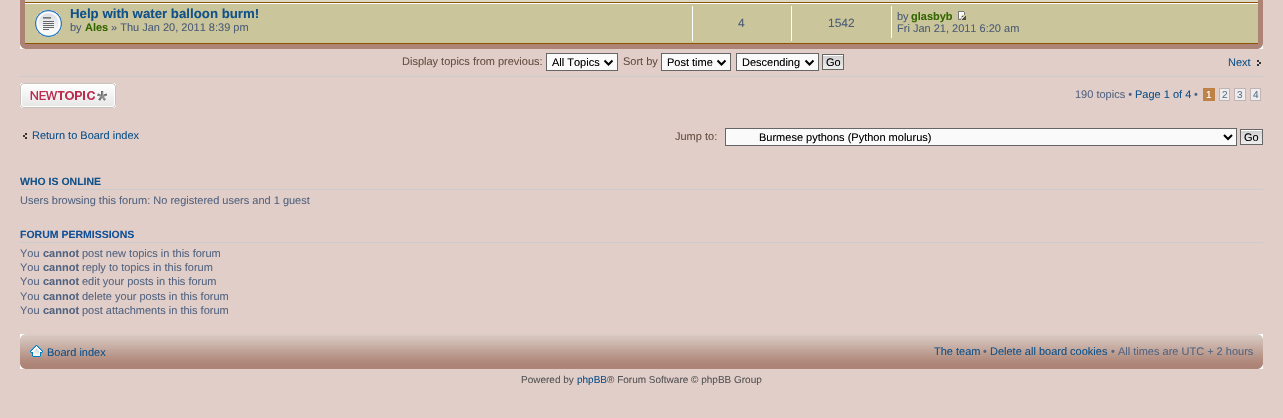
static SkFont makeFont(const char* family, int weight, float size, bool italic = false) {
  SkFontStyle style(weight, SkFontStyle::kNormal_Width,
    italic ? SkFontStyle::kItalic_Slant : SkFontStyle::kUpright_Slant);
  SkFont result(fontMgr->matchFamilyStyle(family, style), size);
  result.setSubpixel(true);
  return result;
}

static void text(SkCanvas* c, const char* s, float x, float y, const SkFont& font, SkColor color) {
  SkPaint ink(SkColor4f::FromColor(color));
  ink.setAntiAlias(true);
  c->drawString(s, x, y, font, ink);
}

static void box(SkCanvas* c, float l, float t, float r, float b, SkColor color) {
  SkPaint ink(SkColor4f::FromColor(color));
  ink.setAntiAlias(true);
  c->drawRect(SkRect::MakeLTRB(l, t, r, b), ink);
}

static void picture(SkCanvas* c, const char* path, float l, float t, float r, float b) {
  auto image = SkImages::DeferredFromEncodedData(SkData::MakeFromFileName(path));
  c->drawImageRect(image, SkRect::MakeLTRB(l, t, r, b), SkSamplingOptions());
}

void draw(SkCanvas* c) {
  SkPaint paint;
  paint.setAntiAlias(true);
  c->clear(0xffe1cec8);
  box(c, 20, 0, 1263, 49, 0xffac8375);
  box(c, 25, 0, 1258, 2, 0xffded9c4);
  box(c, 25, 2, 1258, 3, 0xff8f5400);
  box(c, 25, 4, 1258, 43, 0xffcbc59b);
  box(c, 25, 3, 1258, 4, 0xffffffff);
  box(c, 25, 43, 1258, 44, 0xff8f5400);
  picture(c, "img_01.png", 35, 10, 62, 37);
  SkFont face1 = makeFont("Liberation Sans", 700, 13.25f);
  text(c, "Help with water balloon burm!", 70, 18, face1, 0xff105289);
  SkFont face2 = makeFont("Liberation Sans", 400, 11);
  text(c, "by", 70, 31, face2, 0xff4c5d77);
  SkFont face3 = makeFont("Liberation Sans", 700, 11);
  text(c, "Ales", 85, 31, face3, 0xff336600);
  text(c, "» Thu Jan 20, 2011 8:39 pm", 111, 31, face2, 0xff4c5d77);
  box(c, 692, 6, 693, 41, 0xffffffff);
  SkFont face4 = makeFont("Liberation Sans", 400, 12);
  text(c, "4", 738, 27, face4, 0xff4c5d77);
  box(c, 791, 6, 792, 41, 0xffffffff);
  text(c, "1542", 828, 27, face4, 0xff4c5d77);
  box(c, 891, 6, 892, 38, 0xffffffff);
  text(c, "by", 897, 20, face2, 0xff4c5d77);
  text(c, "glasbyb", 911, 20, face3, 0xff336600);
  picture(c, "img_02.png", 958, 11, 966, 20);
  text(c, "Fri Jan 21, 2011 6:20 am", 897, 32, face2, 0xff4c5d77);
  picture(c, "img_03.png", 20, 44, 25, 49);
  picture(c, "img_04.png", 1258, 44, 1263, 49);
  text(c, "Display topics from previous:", 402, 65, face2, 0xff674e42);
  paint.setColor(0xfffafafa);
  c->drawRect(SkRect::MakeLTRB(546.5f, 53.5f, 617.5f, 70.5f), paint);
  paint.setStyle(SkPaint::kStroke_Style);
  paint.setStrokeWidth(1);
  paint.setColor(0xff666666);
  c->drawRect(SkRect::MakeLTRB(546.5f, 53.5f, 617.5f, 70.5f), paint);
  paint.setStrokeWidth(2);
  paint.setColor(0xff000000);
  c->drawPath(SkPathBuilder().moveTo(604.5f, 60.5f).lineTo(608.5f, 64.5f).lineTo(612.5f, 60.5f).detach(), paint);
  text(c, "All Topics", 552, 66, face2, 0xff000000);
  text(c, "Sort by", 623, 65, face2, 0xff674e42);
  paint.setStyle(SkPaint::kFill_Style);
  paint.setColor(0xfffafafa);
  c->drawRect(SkRect::MakeLTRB(661.5f, 53.5f, 730.5f, 70.5f), paint);
  paint.setStyle(SkPaint::kStroke_Style);
  paint.setStrokeWidth(1);
  paint.setColor(0xff666666);
  c->drawRect(SkRect::MakeLTRB(661.5f, 53.5f, 730.5f, 70.5f), paint);
  paint.setStrokeWidth(2);
  paint.setColor(0xff000000);
  c->drawPath(SkPathBuilder().moveTo(717.5f, 60.5f).lineTo(721.5f, 64.5f).lineTo(725.5f, 60.5f).detach(), paint);
  text(c, "Post time", 667, 66, face2, 0xff000000);
  paint.setStyle(SkPaint::kFill_Style);
  paint.setColor(0xfffafafa);
  c->drawRect(SkRect::MakeLTRB(736.5f, 53.5f, 818.5f, 70.5f), paint);
  paint.setStyle(SkPaint::kStroke_Style);
  paint.setStrokeWidth(1);
  paint.setColor(0xff666666);
  c->drawRect(SkRect::MakeLTRB(736.5f, 53.5f, 818.5f, 70.5f), paint);
  paint.setStrokeWidth(2);
  paint.setColor(0xff000000);
  c->drawPath(SkPathBuilder().moveTo(805.5f, 60.5f).lineTo(809.5f, 64.5f).lineTo(813.5f, 60.5f).detach(), paint);
  text(c, "Descending", 742, 66, face2, 0xff000000);
  picture(c, "img_05.png", 823, 55, 843, 69);
  paint.setStrokeWidth(1);
  paint.setColor(0xff666666);
  c->drawRect(SkRect::MakeLTRB(822.5f, 54.5f, 843.5f, 69.5f), paint);
  text(c, "Go", 826, 66, face2, 0xff000000);
  picture(c, "img_06.png", 1257, 60, 1261, 66);
  text(c, "Next", 1228, 66, face2, 0xff105289);
  box(c, 20, 76, 1263, 77, 0xffcccccc);
  picture(c, "img_07.png", 20, 83, 116, 108);
  text(c, "190 topics •", 1075, 98, face2, 0xff536482);
  text(c, "Page 1 of 4", 1135, 98, face2, 0xff105289);
  text(c, "•", 1194, 98, face2, 0xff536482);
  box(c, 1203, 88, 1215, 101, 0xffbf8246);
  SkFont face5 = makeFont("Liberation Sans", 400, 10);
  text(c, "1", 1206, 98, face5, 0xffffffff);
  paint.setStyle(SkPaint::kFill_Style);
  paint.setColor(0xffeeecec);
  c->drawRect(SkRect::MakeLTRB(1219.5f, 88.5f, 1229.5f, 100.5f), paint);
  paint.setStyle(SkPaint::kStroke_Style);
  paint.setColor(0xffc0b4b4);
  c->drawRect(SkRect::MakeLTRB(1219.5f, 88.5f, 1229.5f, 100.5f), paint);
  text(c, "2", 1222, 98, face5, 0xff5c758c);
  paint.setStyle(SkPaint::kFill_Style);
  paint.setColor(0xffeeecec);
  c->drawRect(SkRect::MakeLTRB(1234.5f, 88.5f, 1245.5f, 100.5f), paint);
  paint.setStyle(SkPaint::kStroke_Style);
  paint.setColor(0xffc0b4b4);
  c->drawRect(SkRect::MakeLTRB(1234.5f, 88.5f, 1245.5f, 100.5f), paint);
  text(c, "3", 1237, 98, face5, 0xff5c758c);
  paint.setStyle(SkPaint::kFill_Style);
  paint.setColor(0xffeeecec);
  c->drawRect(SkRect::MakeLTRB(1250.5f, 88.5f, 1260.5f, 100.5f), paint);
  paint.setStyle(SkPaint::kStroke_Style);
  paint.setColor(0xffc0b4b4);
  c->drawRect(SkRect::MakeLTRB(1250.5f, 88.5f, 1260.5f, 100.5f), paint);
  text(c, "4", 1253, 98, face5, 0xff5c758c);
  picture(c, "img_08.png", 23, 133, 27, 139);
  text(c, "Return to Board index", 32, 139, face2, 0xff105289);
  text(c, "Jump to:", 675, 140, face2, 0xff674e42);
  paint.setStyle(SkPaint::kFill_Style);
  paint.setColor(0xfffafafa);
  c->drawRect(SkRect::MakeLTRB(725.5f, 128.5f, 1236.5f, 145.5f), paint);
  paint.setStyle(SkPaint::kStroke_Style);
  paint.setColor(0xff666666);
  c->drawRect(SkRect::MakeLTRB(725.5f, 128.5f, 1236.5f, 145.5f), paint);
  paint.setStrokeWidth(2);
  paint.setColor(0xff000000);
  c->drawPath(SkPathBuilder().moveTo(1224, 135).lineTo(1228, 139).lineTo(1232, 135).detach(), paint);
  text(c, "Burmese pythons (Python molurus)", 759, 141, face2, 0xff000000);
  picture(c, "img_09.png", 1241, 130, 1262, 144);
  paint.setStrokeWidth(1);
  paint.setColor(0xff666666);
  c->drawRect(SkRect::MakeLTRB(1240.5f, 129.5f, 1262.5f, 144.5f), paint);
  text(c, "Go", 1244, 141, face2, 0xff000000);
  box(c, 20, 189, 1263, 190, 0xffcccccc);
  SkFont face6 = makeFont("Liberation Sans", 700, 10.5f);
  text(c, "WHO IS ONLINE", 20, 185, face6, 0xff105289);
  text(c, "Users browsing this forum: No registered users and 1 guest", 20, 204, face2, 0xff536482);
  box(c, 20, 242, 1263, 243, 0xffcccccc);
  text(c, "FORUM PERMISSIONS", 20, 238, face6, 0xff115098);
  text(c, "You", 20, 257, face2, 0xff536482);
  text(c, "cannot", 43, 257, face3, 0xff536482);
  text(c, "post new topics in this forum", 82, 257, face2, 0xff536482);
  text(c, "You", 20, 271, face2, 0xff536482);
  text(c, "cannot", 43, 271, face3, 0xff536482);
  text(c, "reply to topics in this forum", 82, 271, face2, 0xff536482);
  text(c, "You", 20, 285, face2, 0xff536482);
  text(c, "cannot", 43, 285, face3, 0xff536482);
  text(c, "edit your posts in this forum", 82, 285, face2, 0xff536482);
  text(c, "You", 20, 300, face2, 0xff536482);
  text(c, "cannot", 43, 300, face3, 0xff536482);
  text(c, "delete your posts in this forum", 82, 300, face2, 0xff536482);
  text(c, "You", 20, 314, face2, 0xff536482);
  text(c, "cannot", 43, 314, face3, 0xff536482);
  text(c, "post attachments in this forum", 82, 314, face2, 0xff536482);
  box(c, 21, 334, 1262, 336, 0xffdacbc4);
  picture(c, "img_10.png", 20, 336, 1263, 369);
  picture(c, "img_11.png", 20, 334, 25, 339);
  picture(c, "img_12.png", 1258, 334, 1263, 339);
  picture(c, "img_13.png", 30, 345, 43, 357);
  text(c, "Board index", 47, 356, face2, 0xff105289);
  text(c, "The team", 934, 355, face2, 0xff105289);
  text(c, "•", 983, 355, face2, 0xff536482);
  text(c, "Delete all board cookies", 990, 355, face2, 0xff105289);
  text(c, "• All times are UTC + 2 hours", 1111, 355, face2, 0xff536482);
  picture(c, "img_14.png", 20, 364, 25, 369);
  picture(c, "img_15.png", 1258, 364, 1263, 369);
  text(c, "Powered by", 521, 383, face5, 0xff555555);
  text(c, "phpBB", 577, 383, face5, 0xff105289);
  text(c, "® Forum Software © phpBB Group", 607, 383, face5, 0xff555555);
}
